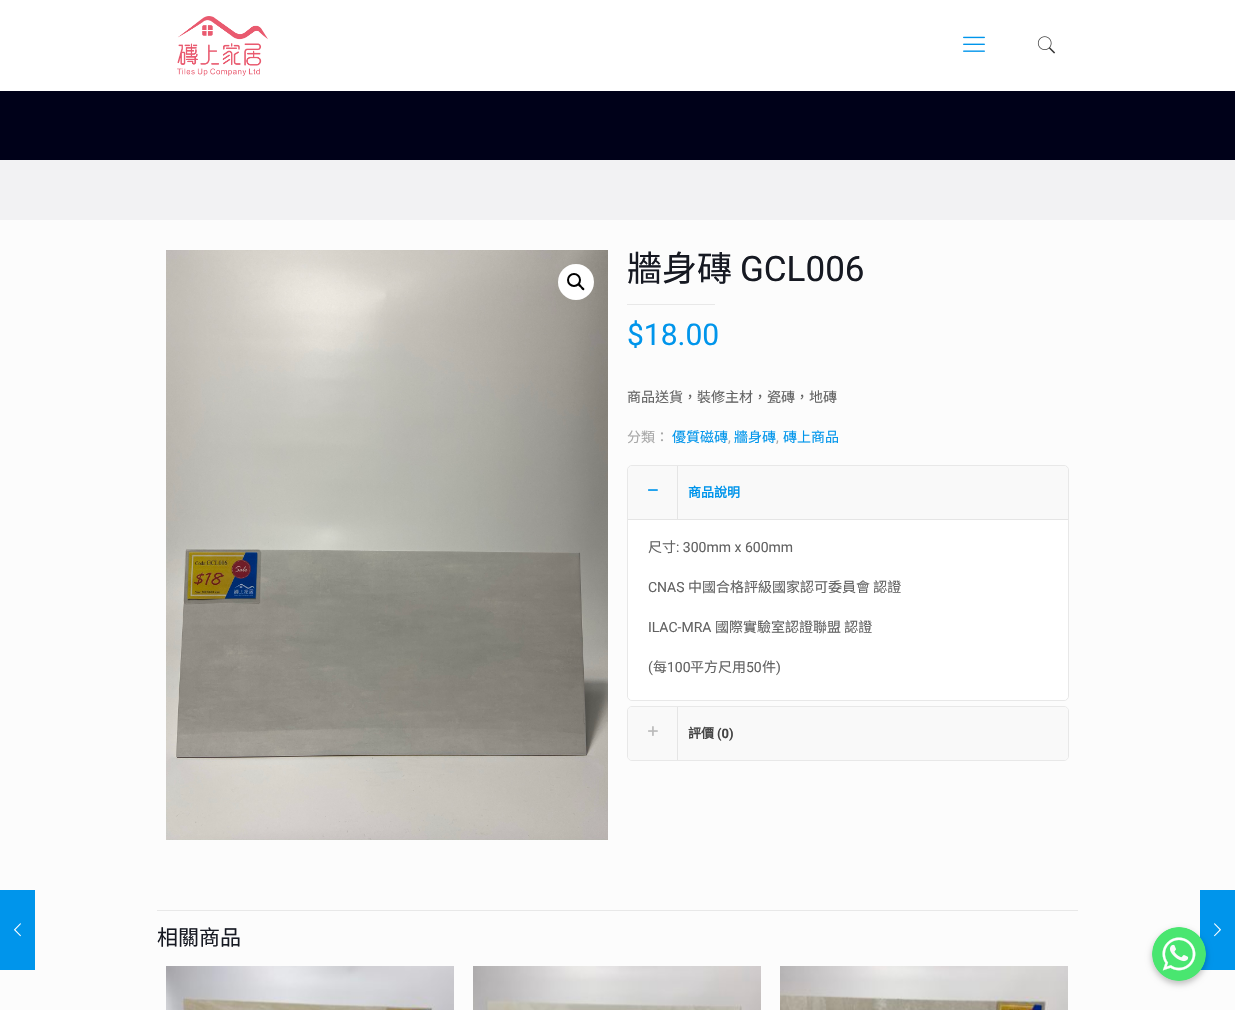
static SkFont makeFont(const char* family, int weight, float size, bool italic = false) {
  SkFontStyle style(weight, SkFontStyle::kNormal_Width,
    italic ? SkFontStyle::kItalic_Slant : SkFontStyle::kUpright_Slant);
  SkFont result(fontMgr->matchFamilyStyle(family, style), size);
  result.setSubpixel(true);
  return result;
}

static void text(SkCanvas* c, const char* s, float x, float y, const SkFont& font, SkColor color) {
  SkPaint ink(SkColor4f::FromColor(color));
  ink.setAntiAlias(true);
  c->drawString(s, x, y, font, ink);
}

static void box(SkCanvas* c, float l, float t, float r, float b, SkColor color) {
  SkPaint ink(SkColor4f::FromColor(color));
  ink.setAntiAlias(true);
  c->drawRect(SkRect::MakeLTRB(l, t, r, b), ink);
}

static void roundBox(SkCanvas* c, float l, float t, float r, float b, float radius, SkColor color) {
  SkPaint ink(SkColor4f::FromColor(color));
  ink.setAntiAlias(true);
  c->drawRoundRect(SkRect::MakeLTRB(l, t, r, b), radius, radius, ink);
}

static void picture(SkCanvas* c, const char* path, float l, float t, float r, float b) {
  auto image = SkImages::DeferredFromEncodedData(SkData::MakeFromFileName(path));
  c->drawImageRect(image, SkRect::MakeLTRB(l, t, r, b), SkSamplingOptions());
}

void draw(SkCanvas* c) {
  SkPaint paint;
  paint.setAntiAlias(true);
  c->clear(0xfffcfcfc);
  box(c, 0, 890, 35, 970, 0xff0095eb);
  picture(c, "img_01.png", 14, 923, 21, 937);
  box(c, 0, 91, 1235, 160, 0xff000119);
  box(c, 0, 0, 1235, 91, 0xffffffff);
  picture(c, "img_02.png", 177, 16, 268, 76);
  picture(c, "img_03.png", 963, 36, 985, 52);
  picture(c, "img_04.png", 1037, 36, 1056, 54);
  box(c, 0, 160, 1235, 220, 0xfff2f2f3);
  picture(c, "img_05.png", 166, 250, 608, 840);
  paint.setColor(0xffffffff);
  c->drawCircle(576, 282, 18, paint);
  paint.setStyle(SkPaint::kStroke_Style);
  paint.setStrokeWidth(2);
  paint.setColor(0xff000000);
  c->drawCircle(574, 280, 6, paint);
  paint.setStyle(SkPaint::kFill_Style);
  c->drawPath(SkPathBuilder().moveTo(578.5f, 284).cubicTo(579.5f, 283, 581.5f, 285.5f, 582, 286.5f).cubicTo(582.5f, 287, 585.5f, 288.5f, 584, 290).cubicTo(583, 291, 581, 288.5f, 580.5f, 287.5f).cubicTo(580, 287, 577, 285.5f, 578.5f, 284).close().detach(), paint);
  SkFont face1 = makeFont("Noto Sans CJK HK", 400, 35);
  text(c, "牆身磚", 627, 281, face1, 0xff161922);
  SkFont face2 = makeFont("Roboto", 400, 35);
  text(c, "GCL006", 740, 281, face2, 0xff161922);
  box(c, 627, 304, 715, 305, 0xffe8e8e8);
  SkFont face3 = makeFont("Roboto", 400, 30);
  text(c, "$18.00", 627, 345, face3, 0xff0095eb);
  SkFont face4 = makeFont("Noto Sans CJK HK", 400, 14);
  text(c, "商品送貨，裝修主材，瓷磚，地磚", 627, 402, face4, 0xff626262);
  text(c, "分類：", 627, 442, face4, 0xffa8a8a8);
  text(c, "優質磁磚", 672, 442, face4, 0xff0095eb);
  SkFont face5 = makeFont("Roboto", 400, 14);
  text(c, ",", 728, 442, face5, 0xffa8a8a8);
  text(c, "牆身磚", 734, 442, face4, 0xff0095eb);
  text(c, ",", 776, 442, face5, 0xffa8a8a8);
  text(c, "磚上商品", 783, 442, face4, 0xff0095eb);
  paint.setStyle(SkPaint::kStroke_Style);
  paint.setStrokeWidth(1);
  paint.setColor(0xffe8e8e8);
  c->drawRoundRect(SkRect::MakeLTRB(627.5f, 465.5f, 1068.5f, 700.5f), 4.5f, 4.5f, paint);
  paint.setStyle(SkPaint::kFill_Style);
  paint.setColor(0xfff9f9f9);
  c->drawPath(SkPathBuilder().moveTo(632, 466).lineTo(1064, 466).cubicTo(1066, 466, 1068, 468, 1068, 470).lineTo(1068, 520).lineTo(628, 520).lineTo(628, 470).cubicTo(628, 468, 630, 466, 632, 466).close().detach(), paint);
  box(c, 628, 519, 1068, 520, 0xffe5e5e5);
  picture(c, "img_06.png", 648, 489, 658, 491);
  box(c, 677, 466, 678, 519, 0xffe5e5e5);
  SkFont face6 = makeFont("Noto Sans CJK HK", 700, 13);
  text(c, "商品說明", 688, 497, face6, 0xff0095eb);
  paint.setColor(0xffffffff);
  c->drawPath(SkPathBuilder().moveTo(628, 520).lineTo(1068, 520).lineTo(1068, 696).cubicTo(1068, 698, 1066, 700, 1064, 700).lineTo(632, 700).cubicTo(630, 700, 628, 698, 628, 696).close().detach(), paint);
  text(c, "尺寸", 648, 552, face4, 0xff626262);
  text(c, ": 300mm x 600mm", 676, 552, face5, 0xff626262);
  text(c, "CNAS", 648, 592, face5, 0xff626262);
  text(c, "中國合格評級國家認可委員會 認證", 688, 592, face4, 0xff626262);
  text(c, "ILAC-MRA", 648, 632, face5, 0xff626262);
  text(c, "國際實驗室認證聯盟 認證", 715, 632, face4, 0xff626262);
  text(c, "(", 648, 672, face5, 0xff626262);
  text(c, "每", 653, 672, face4, 0xff626262);
  text(c, "100", 667, 672, face5, 0xff626262);
  text(c, "平方尺用", 690, 672, face4, 0xff626262);
  text(c, "50", 746, 672, face5, 0xff626262);
  text(c, "件", 762, 672, face4, 0xff626262);
  text(c, ")", 776, 672, face5, 0xff626262);
  paint.setStyle(SkPaint::kStroke_Style);
  paint.setColor(0xffe8e8e8);
  c->drawRoundRect(SkRect::MakeLTRB(627.5f, 706.5f, 1068.5f, 760.5f), 4.5f, 4.5f, paint);
  roundBox(c, 628, 707, 1068, 760, 4, 0xfff9f9f9);
  picture(c, "img_07.png", 648, 726, 658, 736);
  box(c, 677, 707, 678, 760, 0xffe5e5e5);
  text(c, "評價", 688, 738, face6, 0xff444444);
  SkFont face7 = makeFont("Roboto", 700, 13);
  text(c, "(0)", 717, 738, face7, 0xff444444);
  box(c, 157, 910, 1078, 911, 0xffe8e8e8);
  SkFont face8 = makeFont("Noto Sans CJK HK", 400, 21);
  text(c, "相關商品", 157, 945, face8, 0xff161922);
  picture(c, "img_08.png", 166, 966, 454, 1010);
  picture(c, "img_09.png", 473, 966, 761, 1010);
  picture(c, "img_10.png", 780, 966, 1068, 1010);
  box(c, 1200, 890, 1235, 970, 0xff0095eb);
  picture(c, "img_12.png", 1214, 923, 1221, 937);
  paint.setStyle(SkPaint::kFill_Style);
  paint.setColor(0x40000000);
  paint.setMaskFilter(SkMaskFilter::MakeBlur(kNormal_SkBlurStyle, 3));
  c->drawRoundRect(SkRect::MakeLTRB(1152, 930, 1206, 984), 27, 27, paint);
  paint.setMaskFilter(nullptr);
  picture(c, "img_11.png", 1152, 927, 1206, 981);
}
